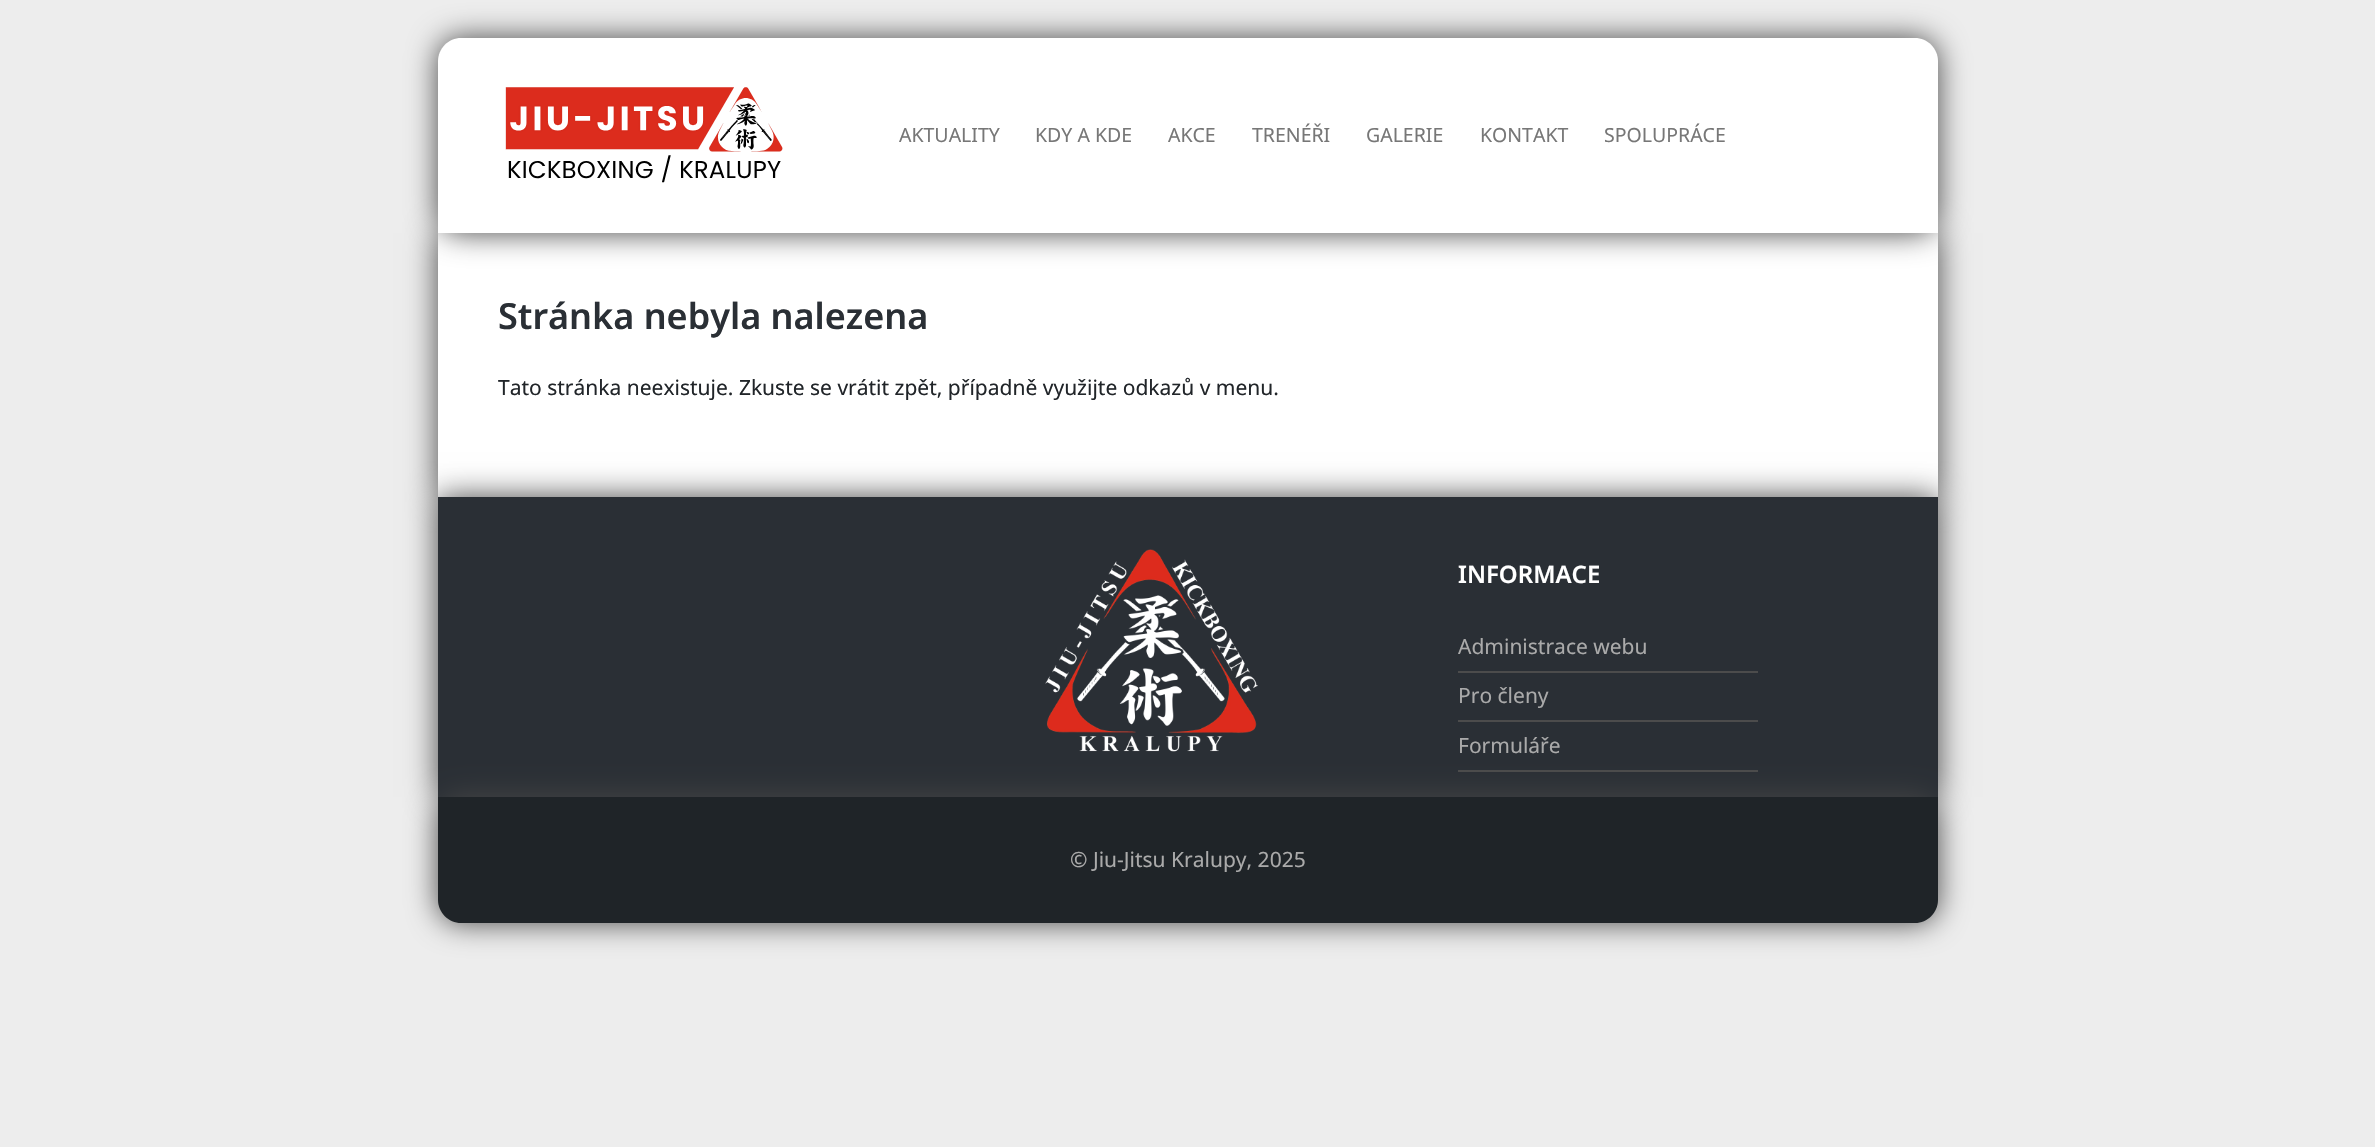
static SkFont makeFont(const char* family, int weight, float size, bool italic = false) {
  SkFontStyle style(weight, SkFontStyle::kNormal_Width,
    italic ? SkFontStyle::kItalic_Slant : SkFontStyle::kUpright_Slant);
  SkFont result(fontMgr->matchFamilyStyle(family, style), size);
  result.setSubpixel(true);
  return result;
}

static void text(SkCanvas* c, const char* s, float x, float y, const SkFont& font, SkColor color) {
  SkPaint ink(SkColor4f::FromColor(color));
  ink.setAntiAlias(true);
  c->drawString(s, x, y, font, ink);
}

static void box(SkCanvas* c, float l, float t, float r, float b, SkColor color) {
  SkPaint ink(SkColor4f::FromColor(color));
  ink.setAntiAlias(true);
  c->drawRect(SkRect::MakeLTRB(l, t, r, b), ink);
}

static void picture(SkCanvas* c, const char* path, float l, float t, float r, float b) {
  auto image = SkImages::DeferredFromEncodedData(SkData::MakeFromFileName(path));
  c->drawImageRect(image, SkRect::MakeLTRB(l, t, r, b), SkSamplingOptions());
}

void draw(SkCanvas* c) {
  SkPaint paint;
  paint.setAntiAlias(true);
  c->clear(0xffededed);
  paint.setColor(0xff464646);
  paint.setMaskFilter(SkMaskFilter::MakeBlur(kNormal_SkBlurStyle, 15));
  c->drawRect(SkRect::MakeLTRB(438, 233, 1938, 497), paint);
  paint.setMaskFilter(nullptr);
  box(c, 438, 233, 1938, 497, 0xffffffff);
  paint.setMaskFilter(SkMaskFilter::MakeBlur(kNormal_SkBlurStyle, 15));
  c->drawRoundRect(SkRect::MakeLTRB(438, 38, 1938, 233), 23, 23, paint);
  paint.setMaskFilter(nullptr);
  paint.setColor(0xffffffff);
  c->drawPath(SkPathBuilder().moveTo(461, 38).lineTo(1915, 38).cubicTo(1927.5f, 38, 1938, 48.5f, 1938, 61).lineTo(1938, 233).lineTo(438, 233).lineTo(438, 61).cubicTo(438, 48.5f, 448.5f, 38, 461, 38).close().detach(), paint);
  picture(c, "img_01.png", 505, 87, 783, 183);
  SkFont face1 = makeFont("Noto Sans", 400, 19.5f);
  text(c, "AKTUALITY", 899, 142, face1, 0xff777777);
  text(c, "KDY A KDE", 1035, 142, face1, 0xff777777);
  text(c, "AKCE", 1168, 142, face1, 0xff777777);
  text(c, "TRENÉŘI", 1252, 142, face1, 0xff777777);
  text(c, "GALERIE", 1366, 142, face1, 0xff777777);
  text(c, "KONTAKT", 1480, 142, face1, 0xff777777);
  text(c, "SPOLUPRÁCE", 1604, 142, face1, 0xff777777);
  SkFont face2 = makeFont("Noto Sans", 600, 36);
  text(c, "Stránka nebyla nalezena", 498, 329, face2, 0xff2a2f35);
  SkFont face3 = makeFont("Noto Sans", 400, 21);
  text(c, "Tato stránka neexistuje. Zkuste se vrátit zpět, případně využijte odkazů v menu.", 498, 395, face3, 0xff212529);
  paint.setColor(0xff464646);
  paint.setMaskFilter(SkMaskFilter::MakeBlur(kNormal_SkBlurStyle, 15));
  c->drawRect(SkRect::MakeLTRB(438, 497, 1938, 797), paint);
  paint.setMaskFilter(nullptr);
  box(c, 438, 497, 1938, 797, 0xff2a2f35);
  paint.setMaskFilter(SkMaskFilter::MakeBlur(kNormal_SkBlurStyle, 15));
  c->drawRoundRect(SkRect::MakeLTRB(438, 797, 1938, 923), 23, 23, paint);
  paint.setMaskFilter(nullptr);
  picture(c, "img_02.png", 1045, 549, 1258, 752);
  SkFont face4 = makeFont("Noto Sans", 600, 24);
  text(c, "INFORMACE", 1458, 583, face4, 0xffffffff);
  box(c, 1458, 671, 1758, 673, 0xff4c4c4c);
  text(c, "Administrace webu", 1458, 654, face3, 0xffaaaaaa);
  box(c, 1458, 720, 1758, 722, 0xff4c4c4c);
  text(c, "Pro členy", 1458, 703, face3, 0xffaaaaaa);
  box(c, 1458, 770, 1758, 772, 0xff4c4c4c);
  text(c, "Formuláře", 1458, 753, face3, 0xffaaaaaa);
  paint.setColor(0xff1f2428);
  c->drawPath(SkPathBuilder().moveTo(438, 797).lineTo(1938, 797).lineTo(1938, 900).cubicTo(1938, 912.5f, 1927.5f, 923, 1915, 923).lineTo(461, 923).cubicTo(448.5f, 923, 438, 912.5f, 438, 900).close().detach(), paint);
  text(c, "© Jiu-Jitsu Kralupy, 2025", 1070, 867, face3, 0xffaaaaaa);
}
